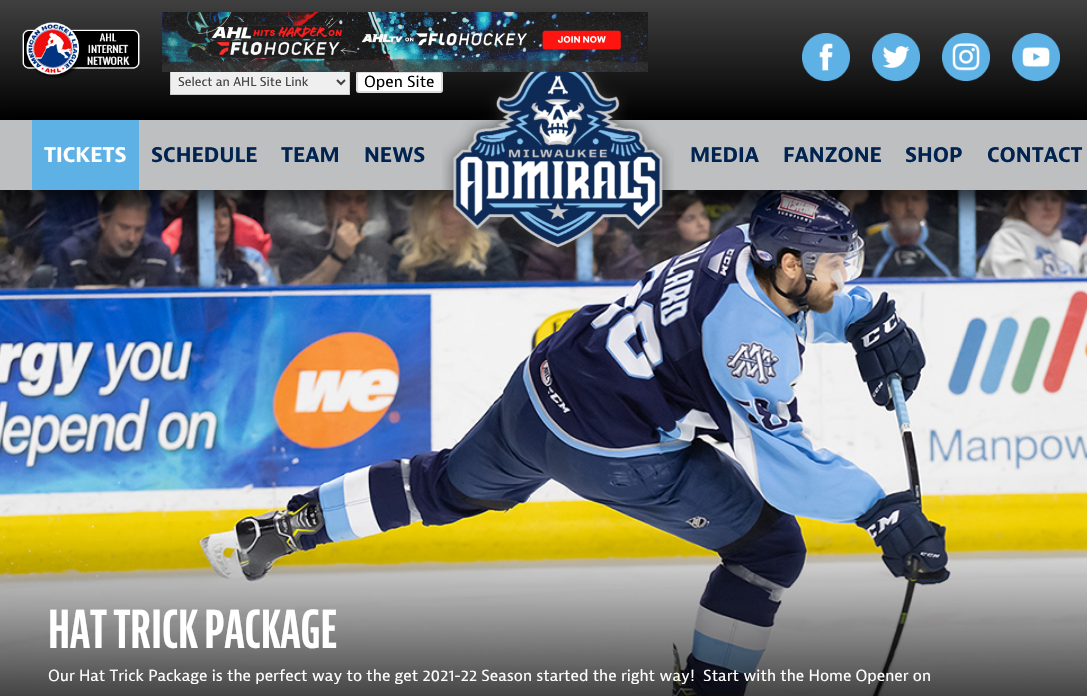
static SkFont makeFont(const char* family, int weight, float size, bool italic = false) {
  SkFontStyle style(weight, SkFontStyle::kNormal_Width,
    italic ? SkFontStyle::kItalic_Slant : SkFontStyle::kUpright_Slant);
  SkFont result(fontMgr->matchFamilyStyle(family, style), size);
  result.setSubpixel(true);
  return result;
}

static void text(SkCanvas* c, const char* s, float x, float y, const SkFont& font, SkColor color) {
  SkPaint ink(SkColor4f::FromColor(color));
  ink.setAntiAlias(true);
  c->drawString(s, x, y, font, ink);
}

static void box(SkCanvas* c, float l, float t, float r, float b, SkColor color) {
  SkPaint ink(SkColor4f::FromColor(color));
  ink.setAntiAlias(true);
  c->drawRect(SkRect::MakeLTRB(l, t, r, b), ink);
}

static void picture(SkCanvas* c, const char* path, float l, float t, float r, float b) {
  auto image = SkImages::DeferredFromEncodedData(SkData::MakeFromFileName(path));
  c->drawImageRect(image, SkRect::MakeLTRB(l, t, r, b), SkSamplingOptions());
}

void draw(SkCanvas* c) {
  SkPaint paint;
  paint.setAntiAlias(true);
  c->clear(0xffffffff);
  {
    const SkColor colors[] = {0xff404040, 0xff000000};
    const float stops[] = {0, 1};
    const SkPoint ends[] = {{544, 0}, {544, 120}};
    paint.setShader(SkGradientShader::MakeLinear(ends, colors, stops, 2, SkTileMode::kClamp));
    paint.setAlpha(255);
  }
  c->drawRect(SkRect::MakeLTRB(0, 0, 1087, 120), paint);
  picture(c, "img_01.png", 802, 33, 850, 81);
  picture(c, "img_02.png", 872, 33, 920, 81);
  picture(c, "img_03.png", 942, 33, 990, 81);
  picture(c, "img_04.png", 1012, 33, 1060, 81);
  picture(c, "img_05.png", 22, 22, 140, 78);
  picture(c, "img_08.png", 0, 190, 1087, 696);
  paint.setShader(nullptr);
  paint.setColor(0xcc000000);
  paint.setMaskFilter(SkMaskFilter::MakeBlur(kNormal_SkBlurStyle, 12.5f));
  c->drawRect(SkRect::MakeLTRB(-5, 124, 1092, 204), paint);
  paint.setMaskFilter(nullptr);
  box(c, 171, 72, 349, 94, 0xffefefef);
  paint.setStyle(SkPaint::kStroke_Style);
  paint.setStrokeWidth(1);
  paint.setColor(0xffcccccc);
  c->drawRect(SkRect::MakeLTRB(170.5f, 69.5f, 349.5f, 94.5f), paint);
  box(c, 0, 120, 1087, 190, 0xffbdbfc1);
  picture(c, "img_07.png", 442, 72, 674, 253);
  paint.setStyle(SkPaint::kFill_Style);
  paint.setColor(0xffffffff);
  c->drawRoundRect(SkRect::MakeLTRB(357, 72, 442, 92), 2, 2, paint);
  paint.setStyle(SkPaint::kStroke_Style);
  paint.setStrokeWidth(2);
  paint.setColor(0xffdedede);
  c->drawRoundRect(SkRect::MakeLTRB(357, 72, 442, 92), 2, 2, paint);
  picture(c, "img_06.png", 162, 12, 648, 72);
  paint.setColor(0xff404040);
  c->drawPath(SkPathBuilder().moveTo(337, 80).lineTo(341, 84).lineTo(345, 80).detach(), paint);
  SkFont face1 = makeFont("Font", 400, 12.75f);
  text(c, "Select an AHL Site Link", 178, 86, face1, 0xff404040);
  SkFont face2 = makeFont("Font", 400, 16);
  text(c, "Open Site", 364, 87, face2, 0xff000000);
  box(c, 32, 120, 139, 190, 0xff5eb1e4);
  SkFont face3 = makeFont("Font", 700, 21);
  text(c, "TICKETS", 44, 162, face3, 0xffffffff);
  text(c, "SCHEDULE", 151, 162, face3, 0xff002350);
  text(c, "TEAM", 281, 162, face3, 0xff002350);
  text(c, "NEWS", 364, 162, face3, 0xff002350);
  text(c, "MEDIA", 690, 162, face3, 0xff002350);
  text(c, "FANZONE", 783, 162, face3, 0xff002350);
  text(c, "SHOP", 905, 162, face3, 0xff002350);
  text(c, "CONTACT", 987, 162, face3, 0xff002350);
  SkFont face4 = makeFont("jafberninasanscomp", 700, 51);
  text(c, "HAT TRICK PACKAGE", 48, 648, face4, 0xffffffff);
  text(c, "Our Hat Trick Package is the perfect way to the get 2021-22 Season started the right way!  Start with the Home Opener on", 48, 681, face2, 0xffffffff);
}
